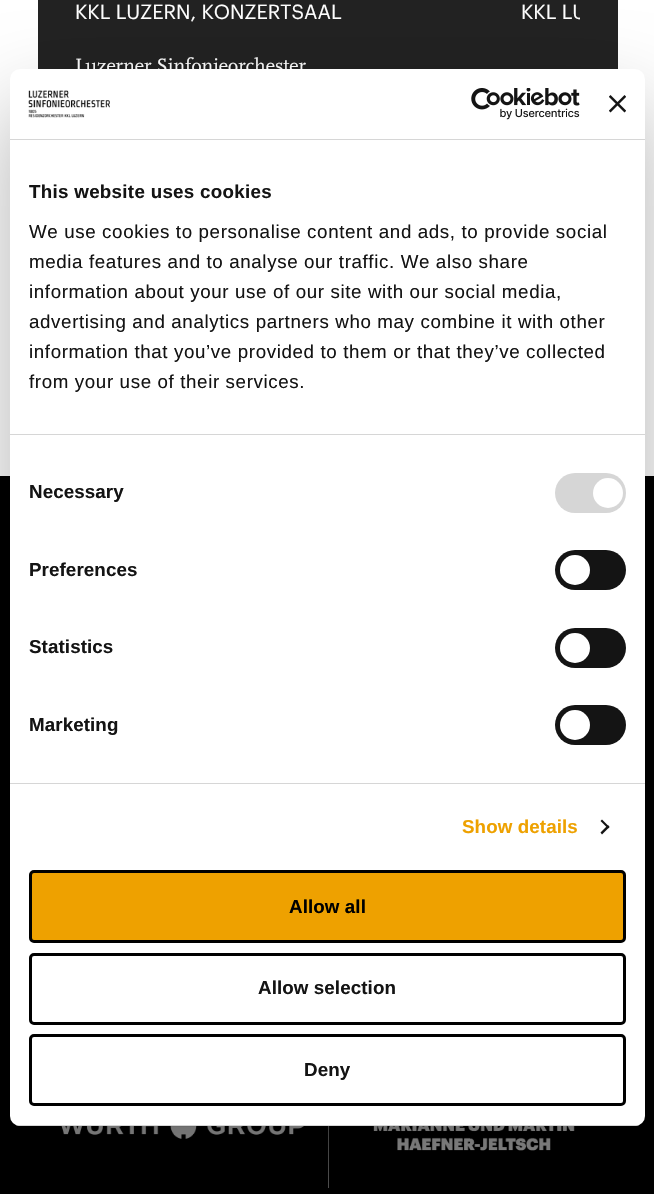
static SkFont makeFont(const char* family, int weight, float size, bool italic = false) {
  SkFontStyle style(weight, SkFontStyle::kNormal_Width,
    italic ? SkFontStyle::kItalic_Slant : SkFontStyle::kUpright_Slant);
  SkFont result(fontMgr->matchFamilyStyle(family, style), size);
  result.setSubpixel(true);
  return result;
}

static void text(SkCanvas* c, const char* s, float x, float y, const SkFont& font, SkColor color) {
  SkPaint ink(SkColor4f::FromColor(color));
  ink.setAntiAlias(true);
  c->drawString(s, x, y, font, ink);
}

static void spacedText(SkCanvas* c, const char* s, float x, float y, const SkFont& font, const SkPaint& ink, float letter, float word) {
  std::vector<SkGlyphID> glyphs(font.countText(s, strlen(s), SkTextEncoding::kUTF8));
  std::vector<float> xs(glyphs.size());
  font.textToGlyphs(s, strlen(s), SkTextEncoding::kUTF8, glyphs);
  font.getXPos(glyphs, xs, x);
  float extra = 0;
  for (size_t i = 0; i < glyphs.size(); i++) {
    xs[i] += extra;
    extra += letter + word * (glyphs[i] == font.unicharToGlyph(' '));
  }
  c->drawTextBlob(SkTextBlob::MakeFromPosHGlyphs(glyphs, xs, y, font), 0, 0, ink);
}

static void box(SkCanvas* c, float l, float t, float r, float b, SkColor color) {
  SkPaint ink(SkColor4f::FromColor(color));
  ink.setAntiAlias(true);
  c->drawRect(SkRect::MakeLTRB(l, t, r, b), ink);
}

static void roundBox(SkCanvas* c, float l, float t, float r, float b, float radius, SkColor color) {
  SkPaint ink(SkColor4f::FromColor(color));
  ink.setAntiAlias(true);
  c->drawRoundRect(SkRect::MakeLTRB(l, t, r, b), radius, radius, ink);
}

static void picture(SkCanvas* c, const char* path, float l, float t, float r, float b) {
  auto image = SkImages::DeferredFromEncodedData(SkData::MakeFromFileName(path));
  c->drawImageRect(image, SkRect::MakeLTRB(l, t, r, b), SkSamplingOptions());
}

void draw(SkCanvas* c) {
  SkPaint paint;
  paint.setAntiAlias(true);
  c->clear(0xffffffff);
  box(c, 38, 0, 618, 69, 0xff222222);
  SkFont face1 = makeFont("Graphik", 400, 20);
  text(c, "KKL LUZERN, KONZERTSAAL", 75, 19, face1, 0xffffffff);
  SkFont face2 = makeFont("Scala", 400, 20);
  text(c, "Luzerner Sinfonieorchester", 75, 72, face2, 0xffffffff);
  c->save();
  c->clipRect(SkRect::MakeLTRB(75, 0, 580, 266));
  text(c, "KKL LU", 521, 19, face1, 0xffffffff);
  c->restore();
  box(c, 0, 476, 654, 1194, 0xff000000);
  picture(c, "img_01.png", 61, 1126, 304, 1139);
  box(c, 328, 1126, 329, 1188, 0xff555555);
  picture(c, "img_02.png", 373, 1126, 575, 1151);
  paint.setColor(0x4d000000);
  paint.setMaskFilter(SkMaskFilter::MakeBlur(kNormal_SkBlurStyle, 42.5f));
  c->drawRoundRect(SkRect::MakeLTRB(10, 109, 645, 1166), 10, 10, paint);
  paint.setMaskFilter(nullptr);
  roundBox(c, 10, 69, 645, 1126, 10, 0xffffffff);
  box(c, 10, 139, 645, 140, 0xffd6d6d6);
  picture(c, "img_03.png", 28, 90, 110, 118);
  picture(c, "img_04.png", 471, 88, 580, 120);
  picture(c, "img_05.png", 609, 95, 626, 113);
  box(c, 10, 434, 645, 435, 0xffd6d6d6);
  SkFont face3 = makeFont("Liberation Sans", 700, 18.75f);
  paint.setColor(0xff141414);
  spacedText(c, "This website uses cookies", 29, 198, face3, paint, 0.3f, 0);
  SkFont face4 = makeFont("Liberation Sans", 400, 18.75f);
  spacedText(c, "We use cookies to personalise content and ads, to provide social", 29, 238, face4, paint, 0.62f, 0);
  spacedText(c, "media features and to analyse our traffic. We also share", 29, 268, face4, paint, 0.62f, 0);
  spacedText(c, "information about your use of our site with our social media,", 29, 298, face4, paint, 0.62f, 0);
  spacedText(c, "advertising and analytics partners who may combine it with other", 29, 328, face4, paint, 0.62f, 0);
  spacedText(c, "information that you’ve provided to them or that they’ve collected", 29, 358, face4, paint, 0.62f, 0);
  spacedText(c, "from your use of their services.", 29, 388, face4, paint, 0.62f, 0);
  box(c, 10, 783, 645, 784, 0xffd6d6d6);
  spacedText(c, "Necessary", 29, 498, face3, paint, 0.1f, 0);
  roundBox(c, 555, 473, 626, 513, 20, 0xffd6d6d6);
  paint.setColor(0xffffffff);
  c->drawCircle(608, 493, 15, paint);
  paint.setColor(0xff141414);
  spacedText(c, "Preferences", 29, 576, face3, paint, 0.1f, 0);
  roundBox(c, 555, 550, 626, 590, 20, 0xff141414);
  paint.setColor(0xffffffff);
  c->drawCircle(575, 570, 15, paint);
  paint.setColor(0xff141414);
  spacedText(c, "Statistics", 29, 653, face3, paint, 0.1f, 0);
  roundBox(c, 555, 628, 626, 668, 20, 0xff141414);
  paint.setColor(0xffffffff);
  c->drawCircle(575, 648, 15, paint);
  paint.setColor(0xff141414);
  spacedText(c, "Marketing", 29, 731, face3, paint, 0.1f, 0);
  roundBox(c, 555, 705, 626, 745, 20, 0xff141414);
  paint.setColor(0xffffffff);
  c->drawCircle(575, 725, 15, paint);
  paint.setColor(0xffeea100);
  spacedText(c, "Show details", 462, 833, face3, paint, 0.1f, 0);
  paint.setColor(0xff141414);
  c->drawPath(SkPathBuilder().moveTo(602, 819.5f).lineTo(609.5f, 827).lineTo(608, 828.5f).lineTo(600.5f, 821).close().detach(), paint);
  c->drawPath(SkPathBuilder().moveTo(608, 825).lineTo(609.5f, 827).lineTo(602, 834.5f).lineTo(600.5f, 832.5f).close().detach(), paint);
  c->save();
  c->clipPath(SkPathBuilder().moveTo(20, 69).lineTo(635, 69).cubicTo(640.5f, 69, 645, 73.5f, 645, 79).lineTo(645, 1116).cubicTo(645, 1121.5f, 640.5f, 1126, 635, 1126).lineTo(20, 1126).cubicTo(14.5f, 1126, 10, 1121.5f, 10, 1116).lineTo(10, 79).cubicTo(10, 73.5f, 14.5f, 69, 20, 69).close().detach(), true);
  box(c, 10, 1125, 645, 1126, 0xffd6d6d6);
  c->restore();
  paint.setColor(0xffeea100);
  c->drawRoundRect(SkRect::MakeLTRB(30.5f, 871.5f, 624.5f, 941.5f), 3.5f, 3.5f, paint);
  paint.setStyle(SkPaint::kStroke_Style);
  paint.setStrokeWidth(3);
  paint.setColor(0xff000000);
  c->drawRoundRect(SkRect::MakeLTRB(30.5f, 871.5f, 624.5f, 941.5f), 3.5f, 3.5f, paint);
  paint.setStyle(SkPaint::kFill_Style);
  spacedText(c, "Allow all", 289, 913, face3, paint, 0.1f, 0);
  paint.setStyle(SkPaint::kStroke_Style);
  c->drawRoundRect(SkRect::MakeLTRB(30.5f, 954.5f, 624.5f, 1023.5f), 3.5f, 3.5f, paint);
  paint.setStyle(SkPaint::kFill_Style);
  paint.setColor(0xff141414);
  spacedText(c, "Allow selection", 258, 994, face3, paint, 0.1f, 0);
  paint.setStyle(SkPaint::kStroke_Style);
  paint.setColor(0xff000000);
  c->drawRoundRect(SkRect::MakeLTRB(30.5f, 1035.5f, 624.5f, 1104.5f), 3.5f, 3.5f, paint);
  paint.setStyle(SkPaint::kFill_Style);
  paint.setColor(0xff141414);
  spacedText(c, "Deny", 304, 1076, face3, paint, 0.1f, 0);
}
